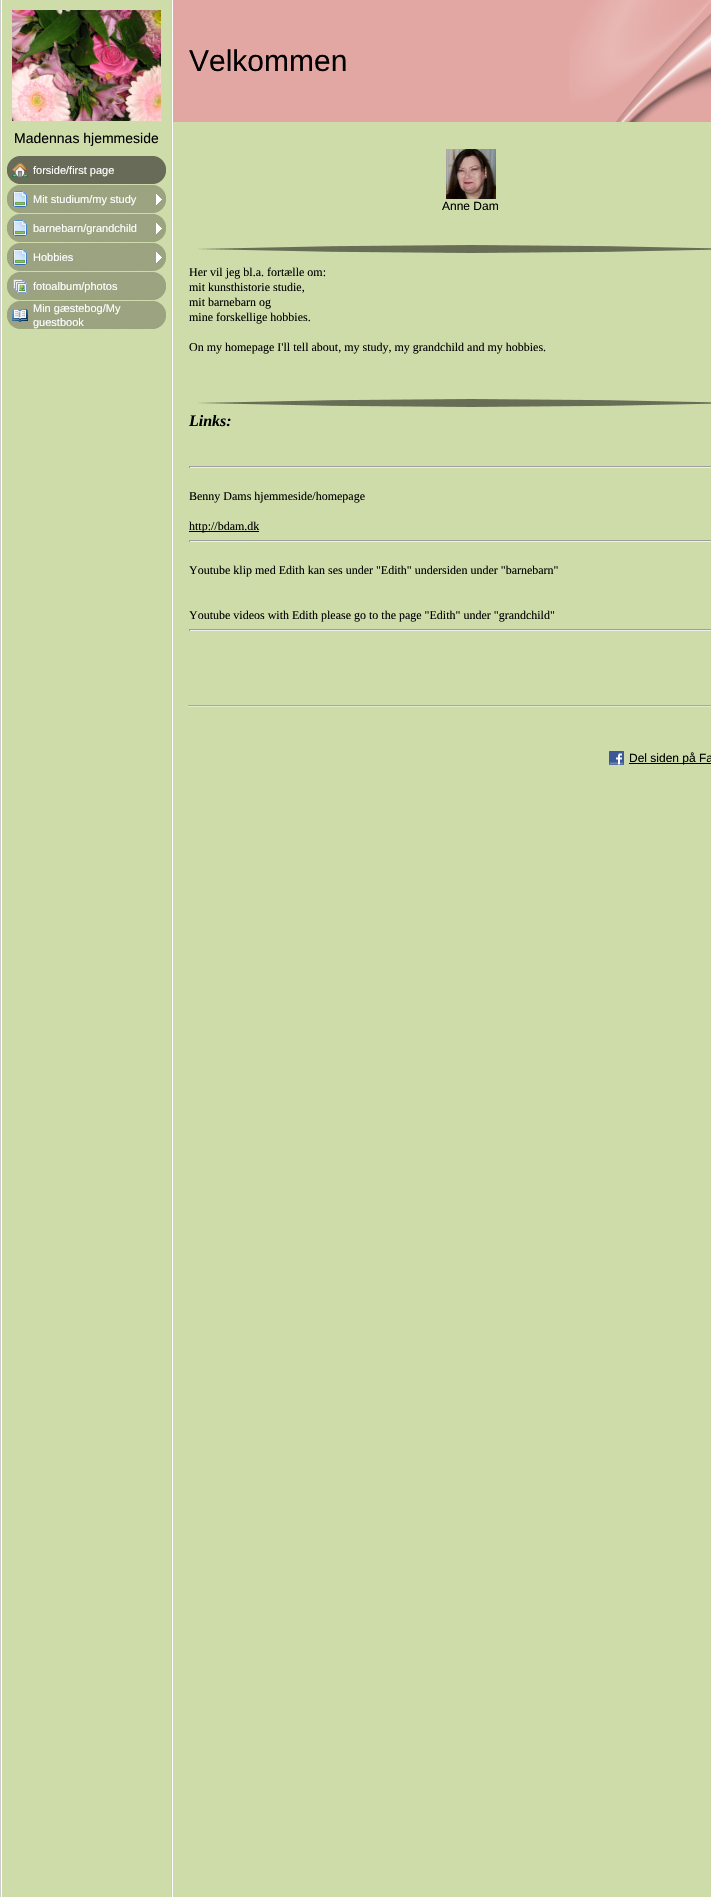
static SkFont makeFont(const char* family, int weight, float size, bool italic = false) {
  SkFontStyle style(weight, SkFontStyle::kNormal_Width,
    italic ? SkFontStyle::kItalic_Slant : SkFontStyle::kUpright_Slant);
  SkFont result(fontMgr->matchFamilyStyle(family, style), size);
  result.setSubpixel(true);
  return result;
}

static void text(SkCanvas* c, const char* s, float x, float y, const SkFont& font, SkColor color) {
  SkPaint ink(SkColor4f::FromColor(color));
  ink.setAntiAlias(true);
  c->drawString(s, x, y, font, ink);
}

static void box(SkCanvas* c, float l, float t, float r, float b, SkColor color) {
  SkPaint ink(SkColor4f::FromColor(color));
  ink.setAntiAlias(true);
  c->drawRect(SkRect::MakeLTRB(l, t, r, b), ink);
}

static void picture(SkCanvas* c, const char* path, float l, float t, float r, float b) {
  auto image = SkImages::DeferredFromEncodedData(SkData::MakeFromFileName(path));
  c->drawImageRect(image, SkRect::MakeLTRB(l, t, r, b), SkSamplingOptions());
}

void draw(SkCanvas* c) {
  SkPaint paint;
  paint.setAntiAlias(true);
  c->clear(0xffffffff);
  box(c, 0, 0, 1, 1897, 0xffcccccc);
  box(c, 2, 0, 171, 1897, 0xffcedcaa);
  picture(c, "img_01.png", 12, 10, 161, 121);
  SkFont face1 = makeFont("Liberation Sans", 400, 14);
  text(c, "Madennas hjemmeside", 14, 143, face1, 0xff000000);
  picture(c, "img_02.png", 7, 156, 166, 184);
  picture(c, "img_03.png", 12, 163, 28, 177);
  SkFont face2 = makeFont("Liberation Sans", 400, 11);
  text(c, "forside/first page", 33, 174, face2, 0xffffffff);
  picture(c, "img_04.png", 7, 185, 166, 213);
  picture(c, "img_05.png", 13, 191, 27, 207);
  picture(c, "img_06.png", 156, 194, 162, 205);
  text(c, "Mit studium/my study", 33, 203, face2, 0xffffffff);
  picture(c, "img_04.png", 7, 214, 166, 242);
  picture(c, "img_05.png", 13, 220, 27, 236);
  picture(c, "img_06.png", 156, 223, 162, 234);
  text(c, "barnebarn/grandchild", 33, 232, face2, 0xffffffff);
  picture(c, "img_04.png", 7, 243, 166, 271);
  picture(c, "img_05.png", 13, 249, 27, 265);
  picture(c, "img_06.png", 156, 252, 162, 263);
  text(c, "Hobbies", 33, 261, face2, 0xffffffff);
  picture(c, "img_04.png", 7, 272, 166, 300);
  picture(c, "img_07.png", 13, 279, 27, 293);
  text(c, "fotoalbum/photos", 33, 290, face2, 0xffffffff);
  picture(c, "img_04.png", 7, 301, 166, 329);
  picture(c, "img_08.png", 12, 309, 28, 322);
  text(c, "Min gæstebog/My", 33, 312, face2, 0xffffffff);
  text(c, "guestbook", 33, 326, face2, 0xffffffff);
  box(c, 171, 0, 172, 1897, 0xffcccccc);
  box(c, 173, 122, 711, 1897, 0xffcedcaa);
  box(c, 173, 0, 711, 122, 0xffe3a7a3);
  SkFont face3 = makeFont("Liberation Sans", 400, 30);
  text(c, "Velkommen", 189, 71, face3, 0xff000000);
  picture(c, "img_09.png", 569, 0, 711, 122);
  picture(c, "img_10.png", 446, 149, 496, 199);
  SkFont face4 = makeFont("Liberation Sans", 400, 12);
  text(c, "Anne Dam", 442, 210, face4, 0xff000000);
  picture(c, "img_11.png", 198, 245, 711, 253);
  SkFont face5 = makeFont("Liberation Serif", 400, 12);
  text(c, "Her vil jeg bl.a. fortælle om:", 189, 276, face5, 0xff000000);
  text(c, "mit kunsthistorie studie,", 189, 291, face5, 0xff000000);
  text(c, "mit barnebarn og", 189, 306, face5, 0xff000000);
  text(c, "mine forskellige hobbies.", 189, 321, face5, 0xff000000);
  text(c, "On my homepage I'll tell about, my study, my grandchild and my hobbies.", 189, 351, face5, 0xff000000);
  picture(c, "img_11.png", 198, 399, 711, 407);
  SkFont face6 = makeFont("Liberation Serif", 700, 16, true);
  text(c, "Links:", 189, 426, face6, 0xff000000);
  box(c, 189, 466, 711, 467, 0xff9f9f9f);
  box(c, 189, 467, 711, 468, 0xffeeeeee);
  box(c, 189, 466, 190, 468, 0xff9f9f9f);
  text(c, "Benny Dams hjemmeside/homepage", 189, 500, face5, 0xff000000);
  box(c, 189, 531, 259, 532, 0xff000000);
  text(c, "http://bdam.dk", 189, 530, face5, 0xff000000);
  box(c, 189, 540, 711, 541, 0xff9f9f9f);
  box(c, 189, 541, 711, 542, 0xffeeeeee);
  box(c, 189, 540, 190, 542, 0xff9f9f9f);
  text(c, "Youtube klip med Edith kan ses under \"Edith\" undersiden under \"barnebarn\"", 189, 574, face5, 0xff000000);
  text(c, "Youtube videos with Edith please go to the page \"Edith\" under \"grandchild\"", 189, 619, face5, 0xff000000);
  box(c, 189, 629, 711, 630, 0xff9f9f9f);
  box(c, 189, 630, 711, 631, 0xffeeeeee);
  box(c, 189, 629, 190, 631, 0xff9f9f9f);
  picture(c, "img_12.png", 188, 705, 711, 707);
  picture(c, "img_13.png", 609, 751, 624, 765);
  box(c, 629, 763, 711, 764, 0xff000000);
  text(c, "Del siden på Fa", 629, 762, face4, 0xff000000);
}
